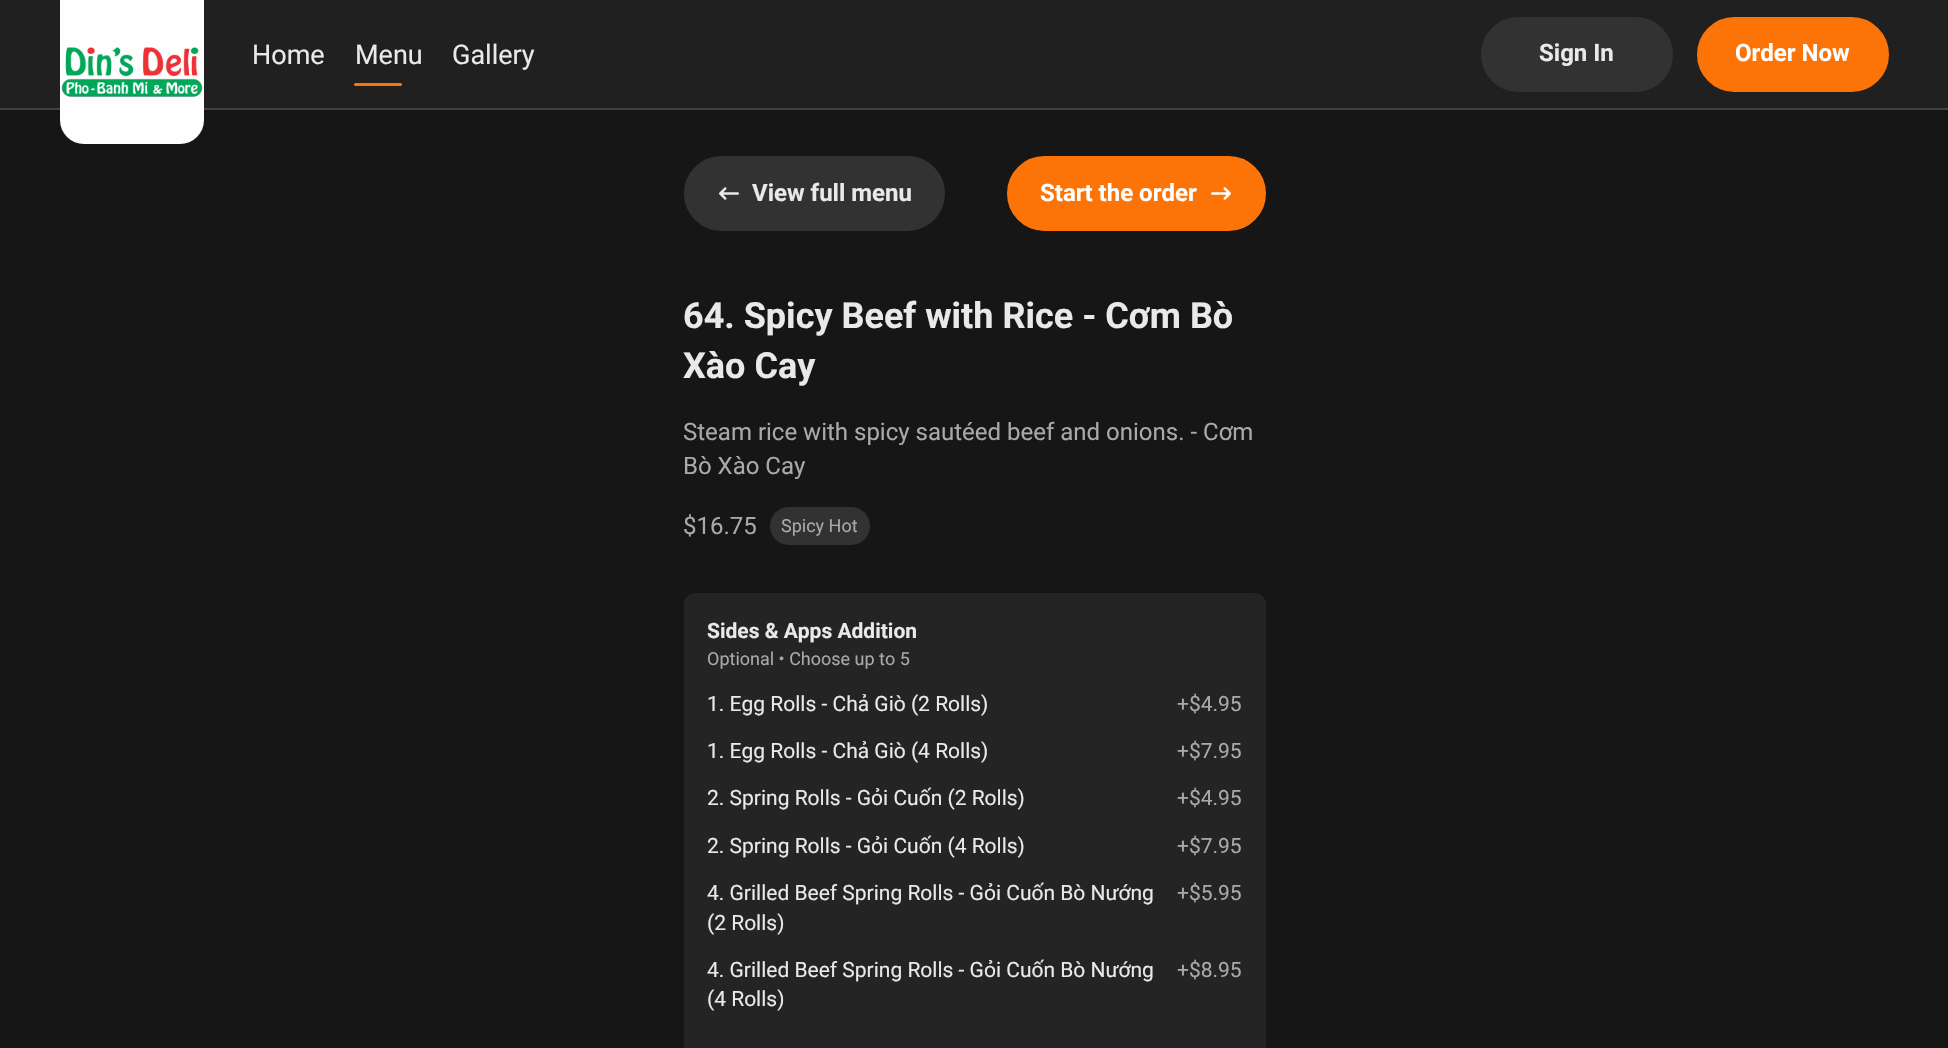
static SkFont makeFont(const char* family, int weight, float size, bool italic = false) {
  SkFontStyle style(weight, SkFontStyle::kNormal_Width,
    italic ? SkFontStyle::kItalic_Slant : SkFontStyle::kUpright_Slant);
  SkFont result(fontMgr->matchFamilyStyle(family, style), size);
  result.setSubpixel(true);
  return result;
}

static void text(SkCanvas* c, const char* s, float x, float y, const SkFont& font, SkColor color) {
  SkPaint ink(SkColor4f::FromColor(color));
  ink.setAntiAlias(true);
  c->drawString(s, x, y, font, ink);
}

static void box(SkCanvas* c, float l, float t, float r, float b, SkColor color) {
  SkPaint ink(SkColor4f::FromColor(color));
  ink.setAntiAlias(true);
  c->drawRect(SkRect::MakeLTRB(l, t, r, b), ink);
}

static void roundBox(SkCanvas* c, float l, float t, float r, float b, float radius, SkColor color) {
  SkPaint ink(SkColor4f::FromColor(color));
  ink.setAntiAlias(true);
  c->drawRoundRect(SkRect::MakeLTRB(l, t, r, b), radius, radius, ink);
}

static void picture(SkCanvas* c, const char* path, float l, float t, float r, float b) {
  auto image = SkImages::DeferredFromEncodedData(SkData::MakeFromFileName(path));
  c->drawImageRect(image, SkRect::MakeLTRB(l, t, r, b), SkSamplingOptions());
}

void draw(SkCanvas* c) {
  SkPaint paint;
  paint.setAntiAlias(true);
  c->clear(0xff161616);
  box(c, 0, 0, 1948, 108, 0xff202020);
  box(c, 0, 108, 1948, 110, 0xff404040);
  picture(c, "img_01.png", 60, 0, 204, 144);
  SkFont face1 = makeFont("Roboto", 400, 27);
  text(c, "Home", 252, 64, face1, 0xffe9e9e9);
  text(c, "Menu", 355, 64, face1, 0xffe9e9e9);
  roundBox(c, 354, 83, 402, 86, 1.5f, 0xfffc7408);
  text(c, "Gallery", 452, 64, face1, 0xffe9e9e9);
  paint.setColor(0xff323232);
  c->drawRoundRect(SkRect::MakeLTRB(1482.5f, 18.5f, 1671.5f, 90.5f), 36, 36, paint);
  paint.setStyle(SkPaint::kStroke_Style);
  paint.setStrokeWidth(3);
  c->drawRoundRect(SkRect::MakeLTRB(1482.5f, 18.5f, 1671.5f, 90.5f), 36, 36, paint);
  SkFont face2 = makeFont("Roboto", 700, 24);
  text(c, "Sign In", 1539, 61, face2, 0xffe9e9e9);
  paint.setStyle(SkPaint::kFill_Style);
  paint.setColor(0xfffc7408);
  c->drawRoundRect(SkRect::MakeLTRB(1698.5f, 18.5f, 1887.5f, 90.5f), 36, 36, paint);
  paint.setStyle(SkPaint::kStroke_Style);
  c->drawRoundRect(SkRect::MakeLTRB(1698.5f, 18.5f, 1887.5f, 90.5f), 36, 36, paint);
  text(c, "Order Now", 1735, 61, face2, 0xffffffff);
  paint.setStyle(SkPaint::kFill_Style);
  paint.setColor(0xff323232);
  c->drawRoundRect(SkRect::MakeLTRB(685.5f, 157.5f, 943.5f, 229.5f), 36, 36, paint);
  paint.setStyle(SkPaint::kStroke_Style);
  c->drawRoundRect(SkRect::MakeLTRB(685.5f, 157.5f, 943.5f, 229.5f), 36, 36, paint);
  picture(c, "img_02.png", 719, 187, 739, 200);
  text(c, "View full menu", 752, 201, face2, 0xffe9e9e9);
  paint.setStyle(SkPaint::kFill_Style);
  paint.setColor(0xfffc7408);
  c->drawRoundRect(SkRect::MakeLTRB(1008.5f, 157.5f, 1264.5f, 229.5f), 36, 36, paint);
  paint.setStyle(SkPaint::kStroke_Style);
  c->drawRoundRect(SkRect::MakeLTRB(1008.5f, 157.5f, 1264.5f, 229.5f), 36, 36, paint);
  text(c, "Start the order", 1040, 201, face2, 0xffffffff);
  picture(c, "img_03.png", 1211, 187, 1231, 200);
  SkFont face3 = makeFont("Roboto", 700, 36);
  text(c, "64. Spicy Beef with Rice - Cơm Bò", 683, 328, face3, 0xffe9e9e9);
  text(c, "Xào Cay", 683, 378, face3, 0xffe9e9e9);
  SkFont face4 = makeFont("Roboto", 400, 24);
  text(c, "Steam rice with spicy sautéed beef and onions. - Cơm", 683, 440, face4, 0xffa9a9a9);
  text(c, "Bò Xào Cay", 683, 474, face4, 0xffa9a9a9);
  text(c, "$16.75", 683, 534, face4, 0xffa9a9a9);
  roundBox(c, 770, 507, 870, 545, 19, 0xff323232);
  SkFont face5 = makeFont("Roboto", 400, 18);
  text(c, "Spicy Hot", 781, 532, face5, 0xffa9a9a9);
  roundBox(c, 684, 593, 1266, 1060, 12, 0xff242424);
  SkFont face6 = makeFont("Roboto", 700, 21);
  text(c, "Sides & Apps Addition", 707, 638, face6, 0xffe9e9e9);
  text(c, "Optional • Choose up to 5", 707, 665, face5, 0xffa9a9a9);
  SkFont face7 = makeFont("Roboto", 400, 21);
  text(c, "1. Egg Rolls - Chả Giò (2 Rolls)", 707, 711, face7, 0xffe9e9e9);
  text(c, "+$4.95", 1177, 711, face7, 0xffa9a9a9);
  text(c, "1. Egg Rolls - Chả Giò (4 Rolls)", 707, 758, face7, 0xffe9e9e9);
  text(c, "+$7.95", 1177, 758, face7, 0xffa9a9a9);
  text(c, "2. Spring Rolls - Gỏi Cuốn (2 Rolls)", 707, 805, face7, 0xffe9e9e9);
  text(c, "+$4.95", 1177, 805, face7, 0xffa9a9a9);
  text(c, "2. Spring Rolls - Gỏi Cuốn (4 Rolls)", 707, 853, face7, 0xffe9e9e9);
  text(c, "+$7.95", 1177, 853, face7, 0xffa9a9a9);
  text(c, "4. Grilled Beef Spring Rolls - Gỏi Cuốn Bò Nướng", 707, 900, face7, 0xffe9e9e9);
  text(c, "(2 Rolls)", 707, 930, face7, 0xffe9e9e9);
  text(c, "+$5.95", 1177, 900, face7, 0xffa9a9a9);
  text(c, "4. Grilled Beef Spring Rolls - Gỏi Cuốn Bò Nướng", 707, 977, face7, 0xffe9e9e9);
  text(c, "(4 Rolls)", 707, 1006, face7, 0xffe9e9e9);
  text(c, "+$8.95", 1177, 977, face7, 0xffa9a9a9);
}
